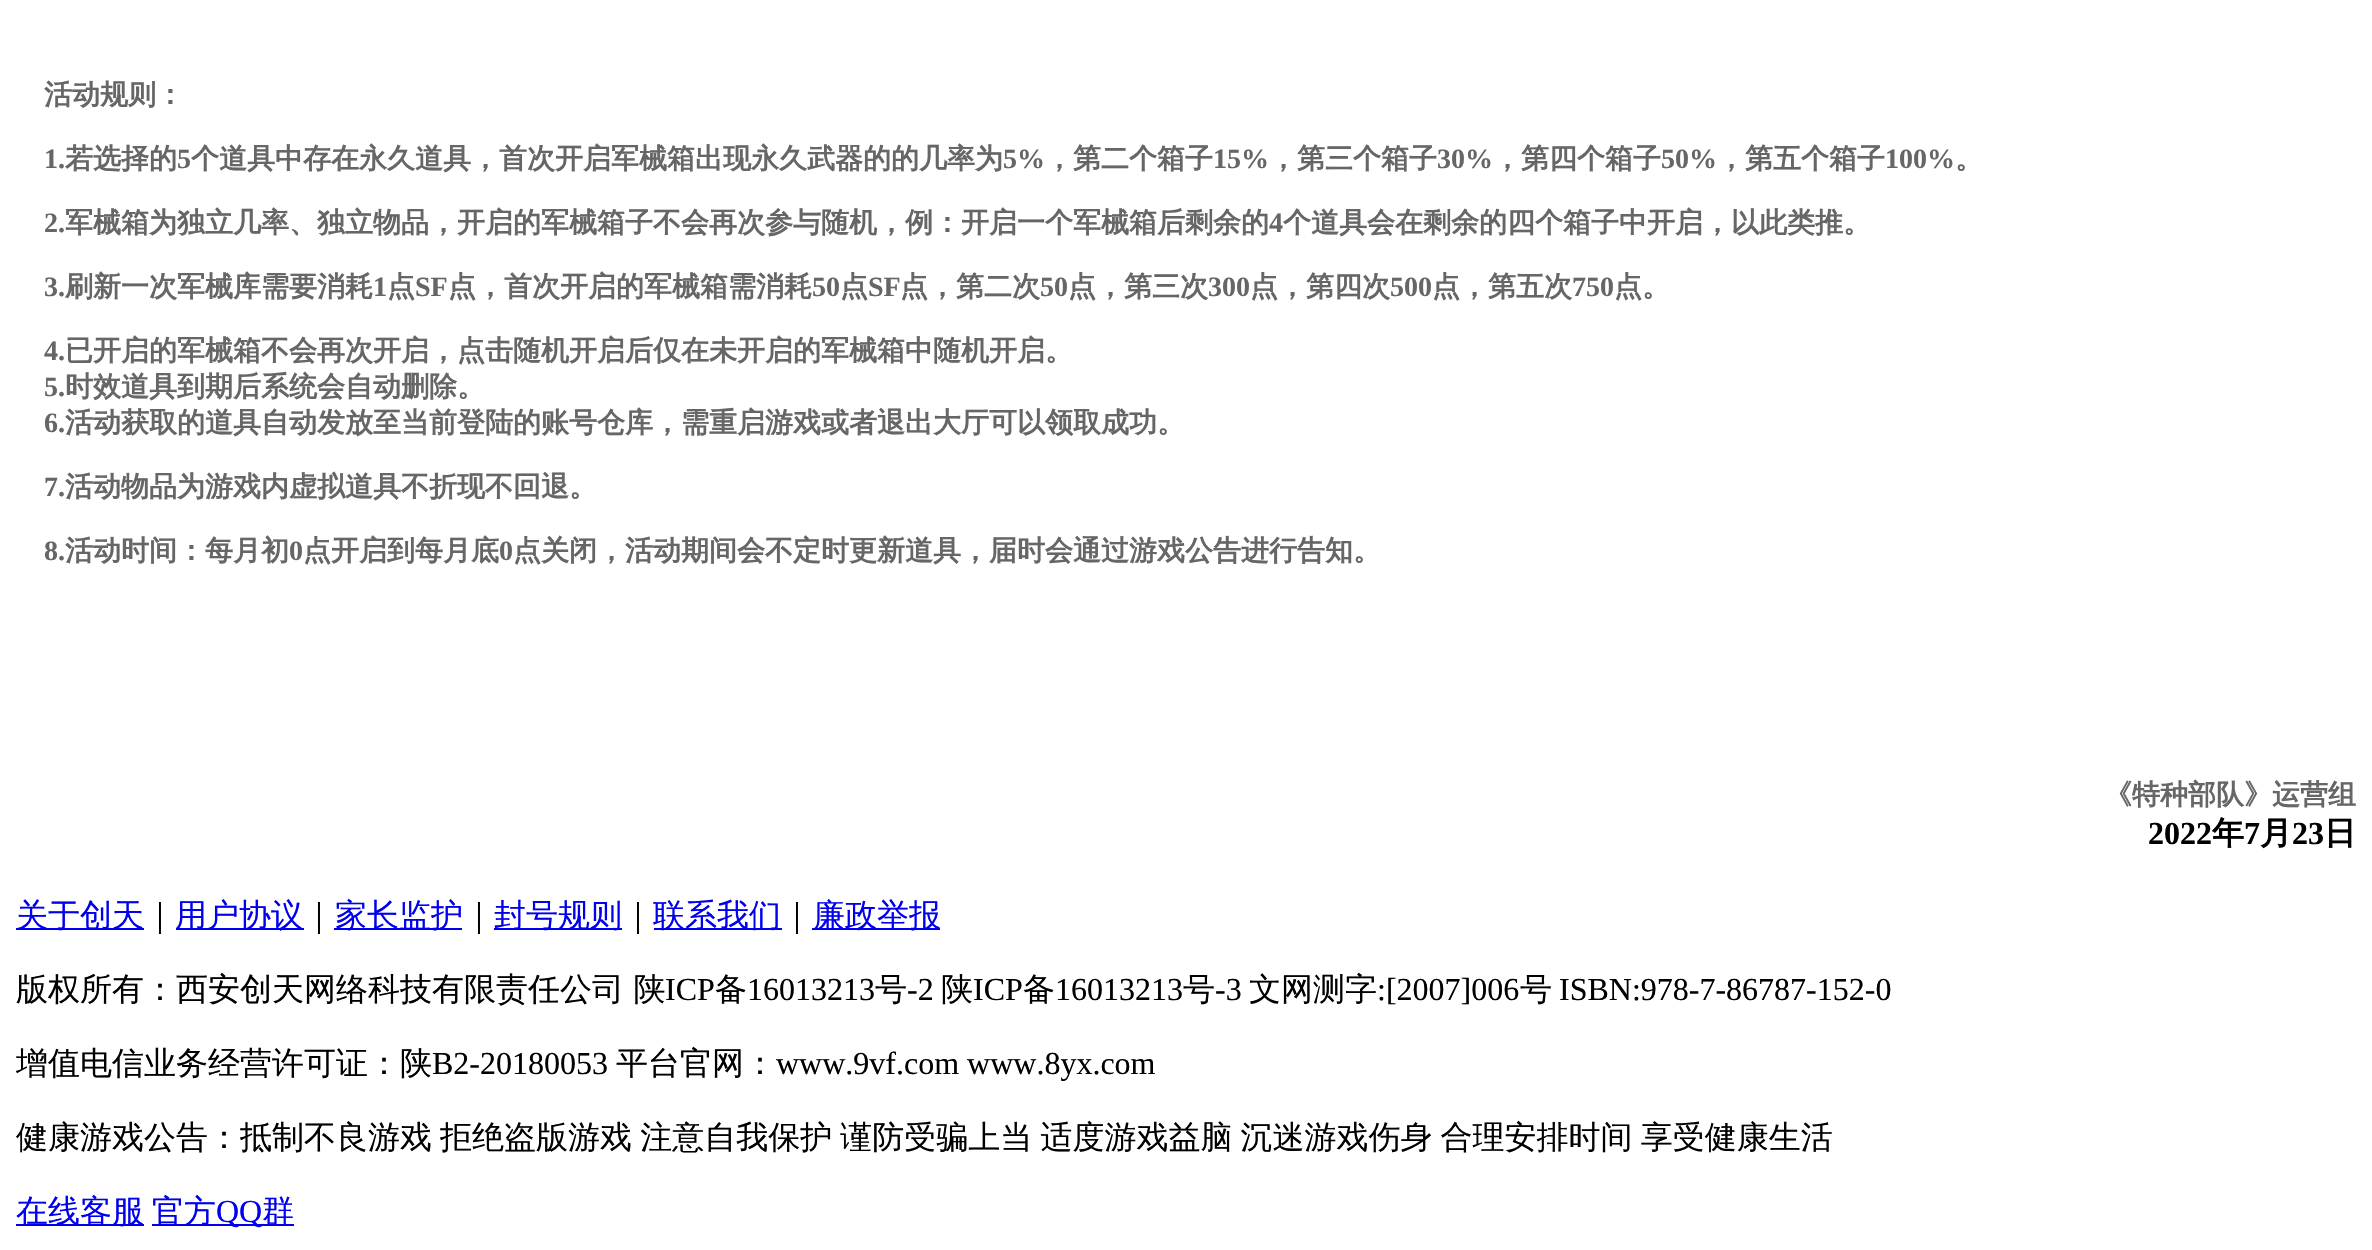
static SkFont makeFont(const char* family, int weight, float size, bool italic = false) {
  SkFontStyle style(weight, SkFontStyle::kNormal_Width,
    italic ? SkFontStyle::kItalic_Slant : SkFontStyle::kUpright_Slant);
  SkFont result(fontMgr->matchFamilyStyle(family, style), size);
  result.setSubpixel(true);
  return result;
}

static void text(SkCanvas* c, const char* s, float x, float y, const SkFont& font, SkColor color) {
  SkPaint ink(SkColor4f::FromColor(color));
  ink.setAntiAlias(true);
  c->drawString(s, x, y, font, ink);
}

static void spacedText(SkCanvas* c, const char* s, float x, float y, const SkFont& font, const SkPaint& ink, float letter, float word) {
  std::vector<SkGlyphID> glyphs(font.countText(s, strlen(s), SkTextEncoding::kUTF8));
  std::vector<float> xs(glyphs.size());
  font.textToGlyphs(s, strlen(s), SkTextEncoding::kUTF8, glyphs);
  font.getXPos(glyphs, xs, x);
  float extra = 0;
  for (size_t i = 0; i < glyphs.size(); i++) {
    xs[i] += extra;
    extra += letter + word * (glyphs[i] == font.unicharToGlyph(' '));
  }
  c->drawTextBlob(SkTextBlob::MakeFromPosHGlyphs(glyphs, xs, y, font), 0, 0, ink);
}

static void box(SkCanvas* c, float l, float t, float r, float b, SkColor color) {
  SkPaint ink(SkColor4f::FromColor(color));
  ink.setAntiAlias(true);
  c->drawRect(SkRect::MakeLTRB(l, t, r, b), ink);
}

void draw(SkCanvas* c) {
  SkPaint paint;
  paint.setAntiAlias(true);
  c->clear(0xffffffff);
  SkFont face1 = makeFont("WenQuanYi Zen Hei", 700, 28);
  text(c, "活动规则：", 44, 104, face1, 0xff666666);
  SkFont face2 = makeFont("Liberation Serif", 700, 28);
  text(c, "1.", 44, 168, face2, 0xff666666);
  text(c, "若选择的", 65, 168, face1, 0xff666666);
  text(c, "5", 177, 168, face2, 0xff666666);
  text(c, "个道具中存在永久道具，首次开启军械箱出现永久武器的的几率为", 191, 168, face1, 0xff666666);
  text(c, "5%", 1003, 168, face2, 0xff666666);
  text(c, "，第二个箱子", 1045, 168, face1, 0xff666666);
  text(c, "15%", 1213, 168, face2, 0xff666666);
  text(c, "，第三个箱子", 1269, 168, face1, 0xff666666);
  text(c, "30%", 1437, 168, face2, 0xff666666);
  text(c, "，第四个箱子", 1493, 168, face1, 0xff666666);
  text(c, "50%", 1661, 168, face2, 0xff666666);
  text(c, "，第五个箱子", 1717, 168, face1, 0xff666666);
  text(c, "100%", 1885, 168, face2, 0xff666666);
  text(c, "。", 1955, 168, face1, 0xff666666);
  text(c, "2.", 44, 232, face2, 0xff666666);
  text(c, "军械箱为独立几率、独立物品，开启的军械箱子不会再次参与随机，例：开启一个军械箱后剩余的", 65, 232, face1, 0xff666666);
  text(c, "4", 1269, 232, face2, 0xff666666);
  text(c, "个道具会在剩余的四个箱子中开启，以此类推。", 1283, 232, face1, 0xff666666);
  text(c, "3.", 44, 296, face2, 0xff666666);
  text(c, "刷新一次军械库需要消耗", 65, 296, face1, 0xff666666);
  text(c, "1", 373, 296, face2, 0xff666666);
  text(c, "点", 387, 296, face1, 0xff666666);
  text(c, "SF", 415, 296, face2, 0xff666666);
  text(c, "点，首次开启的军械箱需消耗", 448, 296, face1, 0xff666666);
  text(c, "50", 812, 296, face2, 0xff666666);
  text(c, "点", 840, 296, face1, 0xff666666);
  text(c, "SF", 868, 296, face2, 0xff666666);
  text(c, "点，第二次", 900, 296, face1, 0xff666666);
  text(c, "50", 1040, 296, face2, 0xff666666);
  text(c, "点，第三次", 1068, 296, face1, 0xff666666);
  text(c, "300", 1208, 296, face2, 0xff666666);
  text(c, "点，第四次", 1250, 296, face1, 0xff666666);
  text(c, "500", 1390, 296, face2, 0xff666666);
  text(c, "点，第五次", 1432, 296, face1, 0xff666666);
  text(c, "750", 1572, 296, face2, 0xff666666);
  text(c, "点。", 1614, 296, face1, 0xff666666);
  text(c, "4.", 44, 360, face2, 0xff666666);
  text(c, "已开启的军械箱不会再次开启，点击随机开启后仅在未开启的军械箱中随机开启。", 65, 360, face1, 0xff666666);
  text(c, "5.", 44, 396, face2, 0xff666666);
  text(c, "时效道具到期后系统会自动删除。", 65, 396, face1, 0xff666666);
  text(c, "6.", 44, 432, face2, 0xff666666);
  text(c, "活动获取的道具自动发放至当前登陆的账号仓库，需重启游戏或者退出大厅可以领取成功。", 65, 432, face1, 0xff666666);
  text(c, "7.", 44, 496, face2, 0xff666666);
  text(c, "活动物品为游戏内虚拟道具不折现不回退。", 65, 496, face1, 0xff666666);
  text(c, "8.", 44, 560, face2, 0xff666666);
  text(c, "活动时间：每月初", 65, 560, face1, 0xff666666);
  text(c, "0", 289, 560, face2, 0xff666666);
  text(c, "点开启到每月底", 303, 560, face1, 0xff666666);
  text(c, "0", 499, 560, face2, 0xff666666);
  text(c, "点关闭，活动期间会不定时更新道具，届时会通过游戏公告进行告知。", 513, 560, face1, 0xff666666);
  text(c, "《特种部队》运营组", 2104, 804, face1, 0xff666666);
  SkFont face3 = makeFont("Liberation Serif", 700, 32);
  text(c, "2022", 2148, 844, face3, 0xff000000);
  SkFont face4 = makeFont("WenQuanYi Zen Hei", 700, 32);
  text(c, "年", 2212, 844, face4, 0xff000000);
  text(c, "7", 2244, 844, face3, 0xff000000);
  text(c, "月", 2260, 844, face4, 0xff000000);
  text(c, "23", 2292, 844, face3, 0xff000000);
  text(c, "日", 2324, 844, face4, 0xff000000);
  box(c, 16, 928, 144, 930, 0xff0000ee);
  SkFont face5 = makeFont("WenQuanYi Zen Hei", 500, 32);
  text(c, "关于创天", 16, 926, face5, 0xff0000ee);
  text(c, "｜", 144, 926, face5, 0xff000000);
  box(c, 176, 928, 304, 930, 0xff0000ee);
  text(c, "用户协议", 175, 926, face5, 0xff0000ee);
  text(c, "｜", 303, 926, face5, 0xff000000);
  box(c, 334, 928, 462, 930, 0xff0000ee);
  text(c, "家长监护", 335, 926, face5, 0xff0000ee);
  text(c, "｜", 463, 926, face5, 0xff000000);
  box(c, 494, 928, 622, 930, 0xff0000ee);
  text(c, "封号规则", 494, 926, face5, 0xff0000ee);
  text(c, "｜", 622, 926, face5, 0xff000000);
  box(c, 654, 928, 782, 930, 0xff0000ee);
  text(c, "联系我们", 653, 926, face5, 0xff0000ee);
  text(c, "｜", 781, 926, face5, 0xff000000);
  box(c, 812, 928, 940, 930, 0xff0000ee);
  text(c, "廉政举报", 813, 926, face5, 0xff0000ee);
  text(c, "版权所有：西安创天网络科技有限责任公司 陕", 16, 1000, face5, 0xff000000);
  SkFont face6 = makeFont("Liberation Serif", 400, 32);
  text(c, "ICP", 665, 1000, face6, 0xff000000);
  text(c, "备", 715, 1000, face5, 0xff000000);
  text(c, "16013213", 747, 1000, face6, 0xff000000);
  text(c, "号", 875, 1000, face5, 0xff000000);
  text(c, "-2", 907, 1000, face6, 0xff000000);
  text(c, "陕", 941, 1000, face5, 0xff000000);
  text(c, "ICP", 973, 1000, face6, 0xff000000);
  text(c, "备", 1023, 1000, face5, 0xff000000);
  text(c, "16013213", 1055, 1000, face6, 0xff000000);
  text(c, "号", 1183, 1000, face5, 0xff000000);
  text(c, "-3", 1215, 1000, face6, 0xff000000);
  text(c, "文网测字", 1249, 1000, face5, 0xff000000);
  text(c, ":[2007]006", 1377, 1000, face6, 0xff000000);
  text(c, "号", 1520, 1000, face5, 0xff000000);
  text(c, "ISBN:978-7-86787-152-0", 1559, 1000, face6, 0xff000000);
  text(c, "增值电信业务经营许可证：陕", 16, 1074, face5, 0xff000000);
  text(c, "B2-20180053", 432, 1074, face6, 0xff000000);
  text(c, "平台官网：", 616, 1074, face5, 0xff000000);
  text(c, "www.9vf.com www.8yx.com", 776, 1074, face6, 0xff000000);
  paint.setColor(0xff000000);
  spacedText(c, "健康游戏公告：抵制不良游戏 拒绝盗版游戏 注意自我保护 谨防受骗上当 适度游戏益脑 沉迷游戏伤身 合理安排时间 享受健康生活", 16, 1148, face5, paint, 0, -1.5f);
  box(c, 16, 1224, 144, 1226, 0xff0000ee);
  text(c, "在线客服", 16, 1222, face5, 0xff0000ee);
  box(c, 152, 1224, 294, 1226, 0xff0000ee);
  text(c, "官方", 152, 1222, face5, 0xff0000ee);
  text(c, "QQ", 216, 1222, face6, 0xff0000ee);
  text(c, "群", 262, 1222, face5, 0xff0000ee);
}
